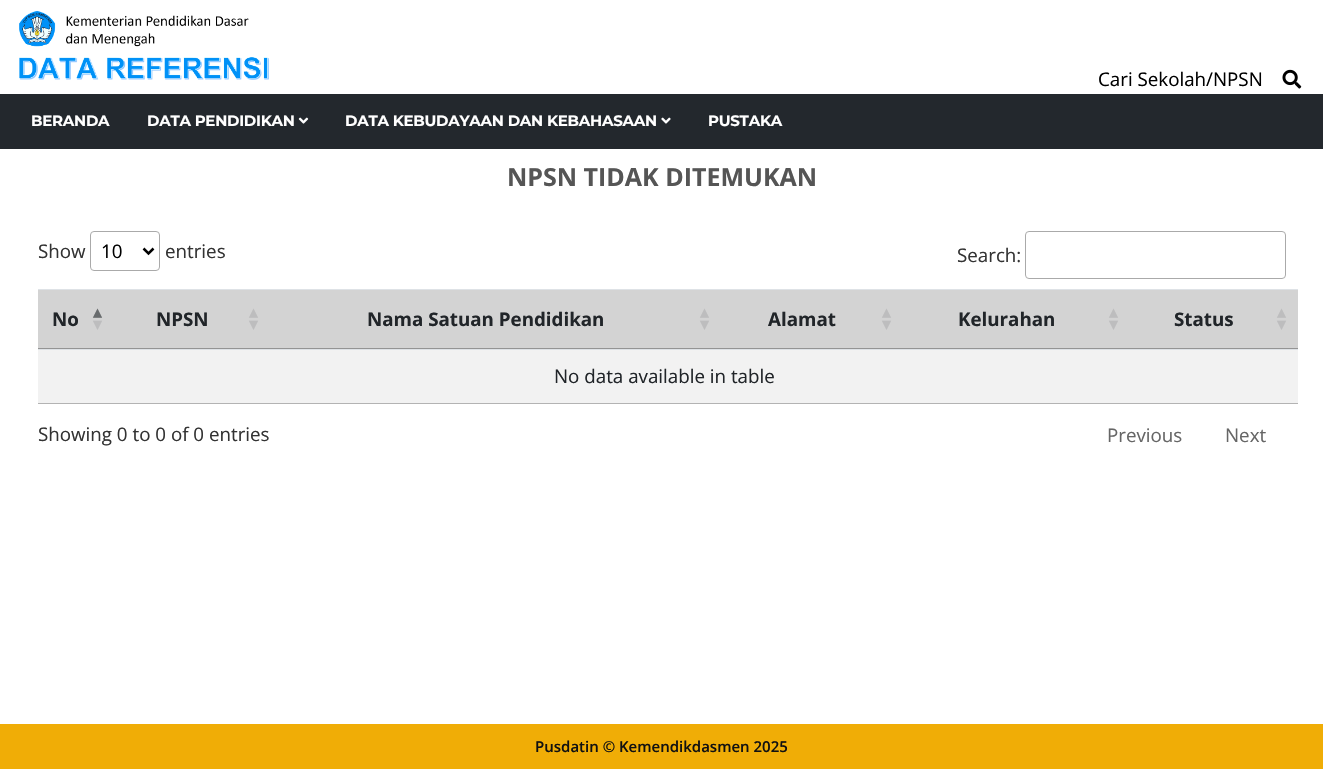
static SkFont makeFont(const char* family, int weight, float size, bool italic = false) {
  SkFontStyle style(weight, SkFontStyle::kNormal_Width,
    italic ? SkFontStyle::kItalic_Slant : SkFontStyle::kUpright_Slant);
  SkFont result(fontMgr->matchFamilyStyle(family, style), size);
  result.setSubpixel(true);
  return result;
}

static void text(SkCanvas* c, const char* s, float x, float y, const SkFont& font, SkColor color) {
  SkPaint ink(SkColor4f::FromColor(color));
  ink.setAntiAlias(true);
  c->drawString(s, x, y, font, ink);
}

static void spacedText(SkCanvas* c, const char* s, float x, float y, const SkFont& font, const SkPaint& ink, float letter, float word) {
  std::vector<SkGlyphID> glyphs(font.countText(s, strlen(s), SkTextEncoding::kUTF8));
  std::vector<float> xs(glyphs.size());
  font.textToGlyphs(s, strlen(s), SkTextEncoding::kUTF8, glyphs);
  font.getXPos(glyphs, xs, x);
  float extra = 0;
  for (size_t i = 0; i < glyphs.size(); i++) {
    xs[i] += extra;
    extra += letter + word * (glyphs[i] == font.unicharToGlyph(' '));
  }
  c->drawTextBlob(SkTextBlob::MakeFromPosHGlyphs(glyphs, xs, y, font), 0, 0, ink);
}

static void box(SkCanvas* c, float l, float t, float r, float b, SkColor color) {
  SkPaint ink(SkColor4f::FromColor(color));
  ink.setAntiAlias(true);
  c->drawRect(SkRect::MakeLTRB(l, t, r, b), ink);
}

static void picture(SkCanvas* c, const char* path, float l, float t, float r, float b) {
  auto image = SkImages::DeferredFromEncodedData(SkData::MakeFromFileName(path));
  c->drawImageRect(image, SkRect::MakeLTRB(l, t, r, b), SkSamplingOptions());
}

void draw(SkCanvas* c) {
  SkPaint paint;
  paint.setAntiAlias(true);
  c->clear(0xffffffff);
  box(c, 0, 94, 1323, 149, 0xff23282d);
  picture(c, "img_01.png", 19, 10, 269, 80);
  SkFont face1 = makeFont("Open Sans", 400, 18.75f);
  text(c, "Cari Sekolah/NPSN", 1098, 86, face1, 0xff000000);
  picture(c, "img_02.png", 1282, 69, 1302, 89);
  SkFont face2 = makeFont("Montserrat", 700, 15);
  paint.setColor(0xffffffff);
  spacedText(c, "BERANDA", 31, 126, face2, paint, -0.25f, 0);
  spacedText(c, "DATA PENDIDIKAN", 147, 126, face2, paint, -0.25f, 0);
  picture(c, "img_03.png", 298, 117, 309, 124);
  spacedText(c, "DATA KEBUDAYAAN DAN KEBAHASAAN", 345, 126, face2, paint, -0.25f, 0);
  picture(c, "img_04.png", 661, 117, 671, 124);
  spacedText(c, "PUSTAKA", 708, 126, face2, paint, -0.25f, 0);
  SkFont face3 = makeFont("Open Sans", 700, 25);
  text(c, "NPSN TIDAK DITEMUKAN", 507, 186, face3, 0xff555555);
  text(c, "Show", 38, 258, face1, 0xff333333);
  paint.setStyle(SkPaint::kStroke_Style);
  paint.setStrokeWidth(1);
  paint.setColor(0xffaaaaaa);
  c->drawRoundRect(SkRect::MakeLTRB(90.5f, 231.5f, 159.5f, 270.5f), 3.5f, 3.5f, paint);
  paint.setStrokeWidth(2.5f);
  paint.setColor(0xff000000);
  c->drawPath(SkPathBuilder().moveTo(143.5f, 248.5f).lineTo(148.5f, 253.5f).lineTo(153.5f, 248.5f).detach(), paint);
  text(c, "10", 101, 258, face1, 0xff000000);
  text(c, "entries", 165, 258, face1, 0xff333333);
  text(c, "Search:", 957, 262, face1, 0xff333333);
  paint.setStrokeWidth(1);
  paint.setColor(0xffaaaaaa);
  c->drawRoundRect(SkRect::MakeLTRB(1025.5f, 231.5f, 1285.5f, 278.5f), 3.5f, 3.5f, paint);
  box(c, 38, 403, 1298, 404, 0xffb3b3b3);
  box(c, 38, 290, 1298, 348, 0xffd3d3d3);
  box(c, 38, 289, 1298, 290, 0xffdee2e6);
  box(c, 38, 348, 1298, 349, 0xff949494);
  SkFont face4 = makeFont("Open Sans", 700, 18.75f);
  text(c, "No", 52, 326, face4, 0xff212529);
  SkFont face5 = makeFont("DejaVu Sans", 700, 17);
  text(c, "▴", 93, 318, face5, 0xff686b6d);
  text(c, "▾", 93, 330, face5, 0xffbdbdbe);
  text(c, "NPSN", 156, 326, face4, 0xff212529);
  text(c, "▴", 249, 318, face5, 0xffbdbdbe);
  text(c, "▾", 249, 330, face5, 0xffbdbdbe);
  text(c, "Nama Satuan Pendidikan", 367, 326, face4, 0xff212529);
  text(c, "▴", 700, 318, face5, 0xffbdbdbe);
  text(c, "▾", 700, 330, face5, 0xffbdbdbe);
  text(c, "Alamat", 768, 326, face4, 0xff212529);
  text(c, "▴", 882, 318, face5, 0xffbdbdbe);
  text(c, "▾", 882, 330, face5, 0xffbdbdbe);
  text(c, "Kelurahan", 958, 326, face4, 0xff212529);
  text(c, "▴", 1109, 318, face5, 0xffbdbdbe);
  text(c, "▾", 1109, 330, face5, 0xffbdbdbe);
  text(c, "Status", 1174, 326, face4, 0xff212529);
  text(c, "▴", 1277, 318, face5, 0xffbdbdbe);
  text(c, "▾", 1277, 330, face5, 0xffbdbdbe);
  box(c, 38, 350, 1298, 403, 0xfff2f2f2);
  box(c, 38, 349, 1298, 350, 0xffdee2e6);
  text(c, "No data available in table", 554, 383, face1, 0xff212529);
  text(c, "Showing 0 to 0 of 0 entries", 38, 441, face1, 0xff333333);
  text(c, "Previous", 1107, 442, face1, 0xff666666);
  text(c, "Next", 1225, 442, face1, 0xff666666);
  box(c, 0, 724, 1323, 769, 0xfff0ad06);
  SkFont face6 = makeFont("Open Sans", 600, 15);
  text(c, "Pusdatin © Kemendikdasmen 2025", 535, 752, face6, 0xff111111);
}
